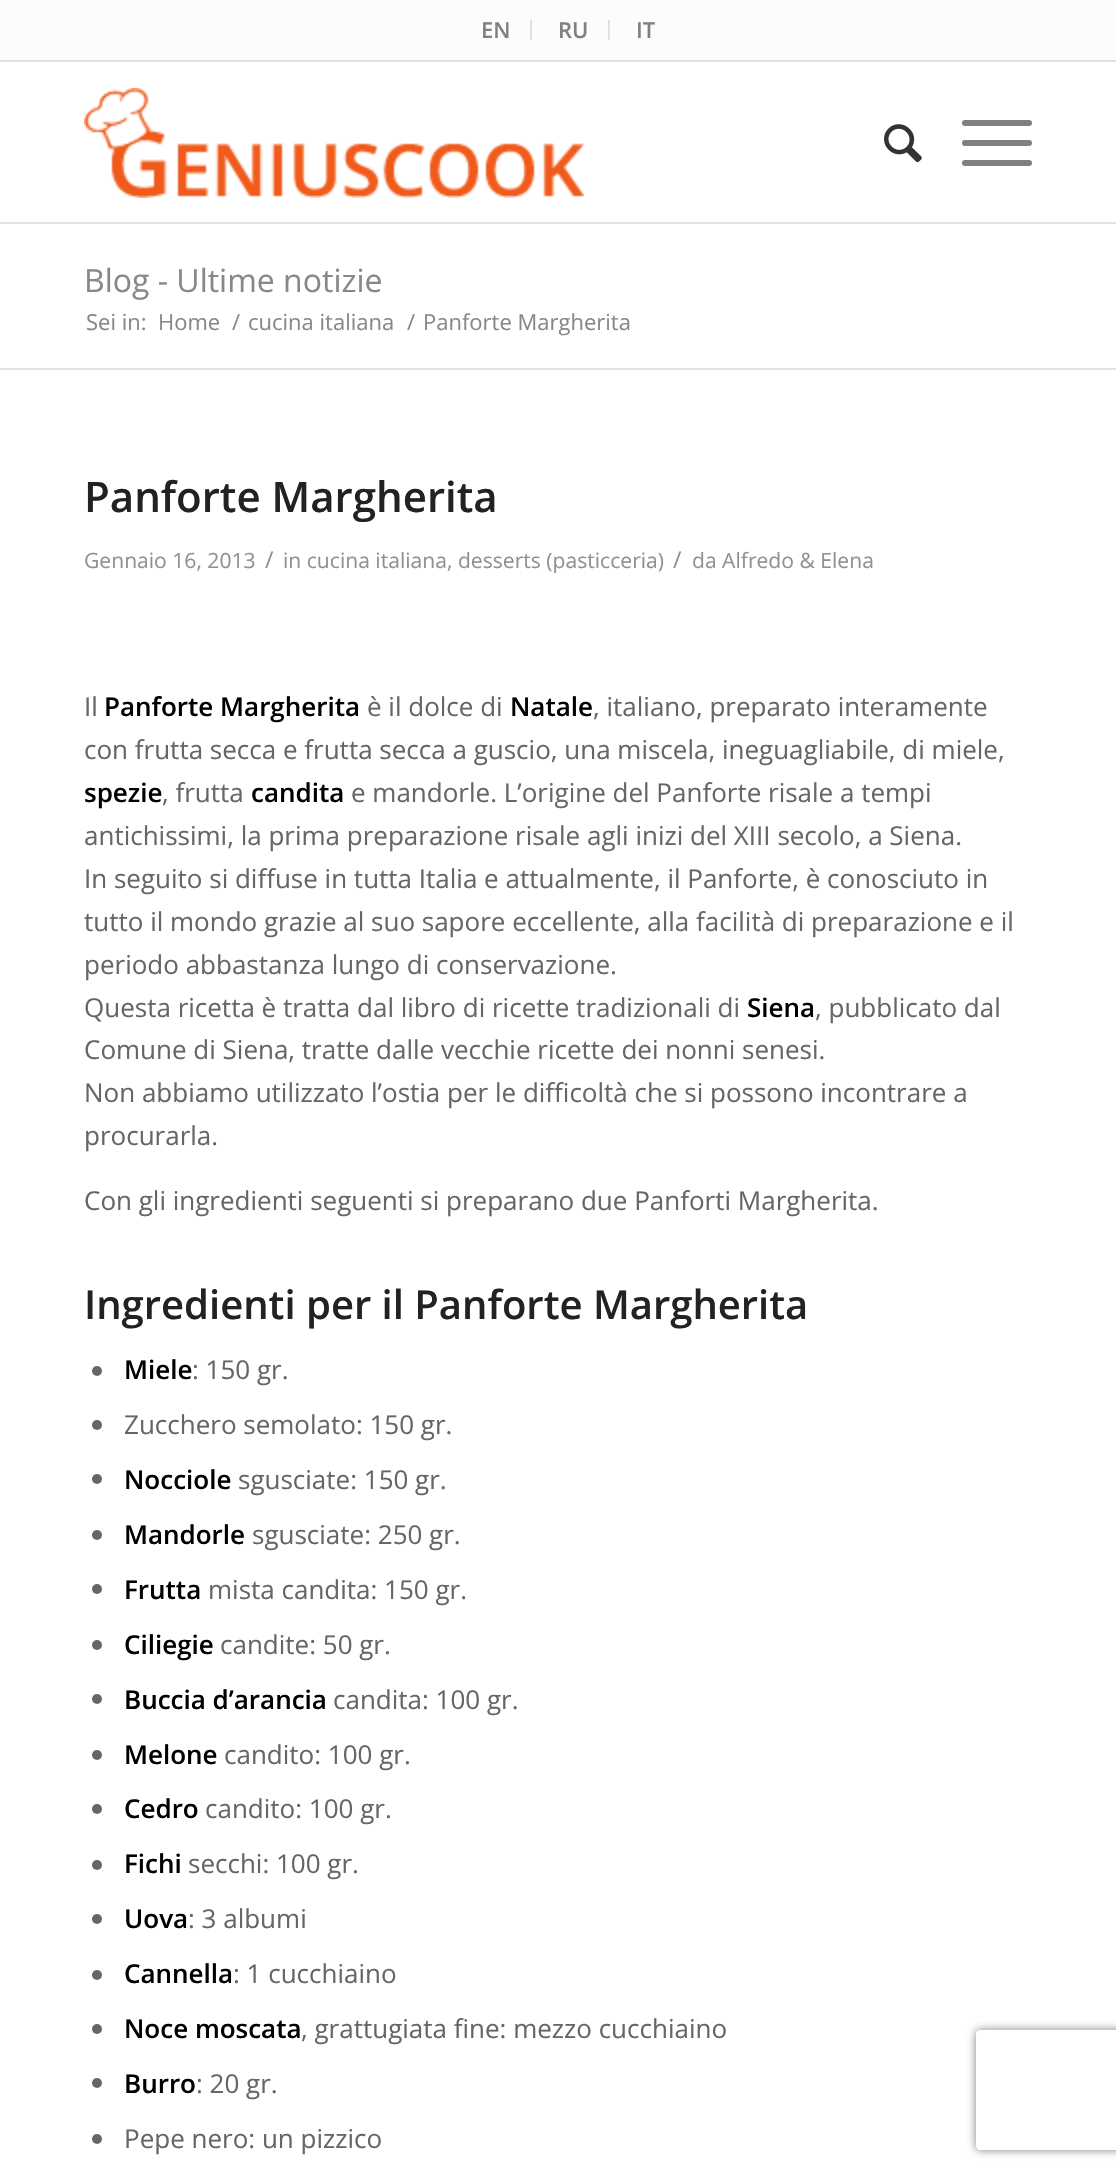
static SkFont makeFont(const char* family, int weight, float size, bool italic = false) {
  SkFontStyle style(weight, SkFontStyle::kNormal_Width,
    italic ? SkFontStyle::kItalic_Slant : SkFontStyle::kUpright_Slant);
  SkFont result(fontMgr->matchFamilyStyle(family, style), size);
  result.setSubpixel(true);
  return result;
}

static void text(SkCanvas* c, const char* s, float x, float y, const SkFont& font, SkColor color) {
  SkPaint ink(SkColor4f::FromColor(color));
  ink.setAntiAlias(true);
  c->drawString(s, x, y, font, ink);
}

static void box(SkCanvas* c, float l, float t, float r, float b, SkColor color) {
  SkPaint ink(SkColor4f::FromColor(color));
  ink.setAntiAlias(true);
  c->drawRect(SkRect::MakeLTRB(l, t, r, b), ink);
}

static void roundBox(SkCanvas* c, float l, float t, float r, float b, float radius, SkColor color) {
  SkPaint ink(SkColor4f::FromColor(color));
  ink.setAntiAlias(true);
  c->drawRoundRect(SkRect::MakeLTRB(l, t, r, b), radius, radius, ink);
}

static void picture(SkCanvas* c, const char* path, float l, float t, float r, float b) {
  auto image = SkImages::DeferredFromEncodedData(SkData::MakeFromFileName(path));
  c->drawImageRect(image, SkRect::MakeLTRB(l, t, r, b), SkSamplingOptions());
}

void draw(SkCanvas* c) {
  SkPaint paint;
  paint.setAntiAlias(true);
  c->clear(0xffffffff);
  box(c, 0, 0, 1116, 60, 0xfffcfcfc);
  box(c, 0, 60, 1116, 62, 0xffe1e1e1);
  box(c, 530, 20, 532, 40, 0xffe1e1e1);
  SkFont face1 = makeFont("Open Sans", 600, 22);
  text(c, "EN", 481, 38, face1, 0xff808080);
  box(c, 608, 20, 610, 40, 0xffe1e1e1);
  text(c, "RU", 558, 38, face1, 0xff808080);
  text(c, "IT", 636, 38, face1, 0xff808080);
  box(c, 0, 222, 1116, 224, 0xffe1e1e1);
  picture(c, "img_01.png", 84, 88, 584, 198);
  picture(c, "img_02.png", 884, 124, 922, 163);
  roundBox(c, 962, 140, 1032, 146, 3, 0xff808080);
  roundBox(c, 962, 120, 1032, 126, 3, 0xff808080);
  roundBox(c, 962, 160, 1032, 166, 3, 0xff808080);
  SkFont face2 = makeFont("Open Sans", 400, 32);
  text(c, "Blog - Ultime notizie", 84, 292, face2, 0xff888888);
  SkFont face3 = makeFont("Open Sans", 400, 22);
  text(c, "Sei in:", 86, 330, face3, 0xff888888);
  text(c, "Home", 158, 330, face3, 0xff888888);
  text(c, "/", 232, 330, face3, 0xff888888);
  text(c, "cucina italiana", 248, 330, face3, 0xff888888);
  text(c, "/", 407, 330, face3, 0xff888888);
  text(c, "Panforte Margherita", 423, 330, face3, 0xff888888);
  box(c, 0, 368, 1116, 370, 0xffe1e1e1);
  SkFont face4 = makeFont("Open Sans", 600, 42);
  text(c, "Panforte Margherita", 84, 512, face4, 0xff222222);
  SkFont face5 = makeFont("Open Sans", 400, 21.1f);
  text(c, "Gennaio 16, 2013", 84, 568, face5, 0xff919191);
  SkFont face6 = makeFont("Open Sans", 400, 23);
  text(c, "/", 265, 568, face6, 0xff919191);
  text(c, "in cucina italiana, desserts (pasticceria)", 283, 568, face5, 0xff919191);
  text(c, "/", 673, 568, face6, 0xff919191);
  text(c, "da Alfredo & Elena", 692, 568, face5, 0xff919191);
  SkFont face7 = makeFont("Open Sans", 400, 26);
  text(c, "Il", 84, 716, face7, 0xff666666);
  SkFont face8 = makeFont("Open Sans", 600, 26);
  text(c, "Panforte Margherita", 104, 716, face8, 0xff000000);
  text(c, "è il dolce di", 367, 716, face7, 0xff666666);
  text(c, "Natale", 510, 716, face8, 0xff000000);
  text(c, ", italiano, preparato interamente", 593, 716, face7, 0xff666666);
  text(c, "con frutta secca e frutta secca a guscio, una miscela, ineguagliabile, di miele,", 84, 759, face7, 0xff666666);
  text(c, "spezie", 84, 802, face8, 0xff000000);
  text(c, ", frutta", 162, 802, face7, 0xff666666);
  text(c, "candita", 251, 802, face8, 0xff000000);
  text(c, "e mandorle. L’origine del Panforte risale a tempi", 351, 802, face7, 0xff666666);
  text(c, "antichissimi, la prima preparazione risale agli inizi del XIII secolo, a Siena.", 84, 845, face7, 0xff666666);
  text(c, "In seguito si diffuse in tutta Italia e attualmente, il Panforte, è conosciuto in", 84, 888, face7, 0xff666666);
  text(c, "tutto il mondo grazie al suo sapore eccellente, alla facilità di preparazione e il", 84, 931, face7, 0xff666666);
  text(c, "periodo abbastanza lungo di conservazione.", 84, 974, face7, 0xff666666);
  text(c, "Questa ricetta è tratta dal libro di ricette tradizionali di", 84, 1017, face7, 0xff666666);
  text(c, "Siena", 747, 1017, face8, 0xff000000);
  text(c, ", pubblicato dal", 815, 1017, face7, 0xff666666);
  text(c, "Comune di Siena, tratte dalle vecchie ricette dei nonni senesi.", 84, 1059, face7, 0xff666666);
  text(c, "Non abbiamo utilizzato l’ostia per le difficoltà che si possono incontrare a", 84, 1102, face7, 0xff666666);
  text(c, "procurarla.", 84, 1145, face7, 0xff666666);
  text(c, "Con gli ingredienti seguenti si preparano due Panforti Margherita.", 84, 1210, face7, 0xff666666);
  SkFont face9 = makeFont("Open Sans", 600, 40);
  text(c, "Ingredienti per il Panforte Margherita", 84, 1319, face9, 0xff222222);
  paint.setColor(0xff666666);
  c->drawCircle(97, 1371, 5, paint);
  text(c, "Miele", 124, 1379, face8, 0xff000000);
  text(c, ": 150 gr.", 192, 1379, face7, 0xff666666);
  c->drawCircle(97, 1425, 5, paint);
  text(c, "Zucchero semolato: 150 gr.", 124, 1434, face7, 0xff666666);
  c->drawCircle(97, 1479, 5, paint);
  text(c, "Nocciole", 124, 1489, face8, 0xff000000);
  text(c, "sgusciate: 150 gr.", 238, 1489, face7, 0xff666666);
  c->drawCircle(97, 1535, 5, paint);
  text(c, "Mandorle", 124, 1544, face8, 0xff000000);
  text(c, "sgusciate: 250 gr.", 252, 1544, face7, 0xff666666);
  c->drawCircle(97, 1589, 5, paint);
  text(c, "Frutta", 124, 1599, face8, 0xff000000);
  text(c, "mista candita: 150 gr.", 208, 1599, face7, 0xff666666);
  c->drawCircle(97, 1645, 5, paint);
  text(c, "Ciliegie", 124, 1654, face8, 0xff000000);
  text(c, "candite: 50 gr.", 220, 1654, face7, 0xff666666);
  c->drawCircle(97, 1699, 5, paint);
  text(c, "Buccia d’arancia", 124, 1709, face8, 0xff000000);
  text(c, "candita: 100 gr.", 333, 1709, face7, 0xff666666);
  c->drawCircle(97, 1755, 5, paint);
  text(c, "Melone", 124, 1764, face8, 0xff000000);
  text(c, "candito: 100 gr.", 224, 1764, face7, 0xff666666);
  c->drawCircle(97, 1809, 5, paint);
  text(c, "Cedro", 124, 1818, face8, 0xff000000);
  text(c, "candito: 100 gr.", 205, 1818, face7, 0xff666666);
  c->drawCircle(97, 1865, 5, paint);
  text(c, "Fichi", 124, 1873, face8, 0xff000000);
  text(c, "secchi: 100 gr.", 188, 1873, face7, 0xff666666);
  c->drawCircle(97, 1919, 5, paint);
  text(c, "Uova", 124, 1928, face8, 0xff000000);
  text(c, ": 3 albumi", 188, 1928, face7, 0xff666666);
  c->drawCircle(97, 1975, 5, paint);
  text(c, "Cannella", 124, 1983, face8, 0xff000000);
  text(c, ": 1 cucchiaino", 233, 1983, face7, 0xff666666);
  c->drawCircle(97, 2029, 5, paint);
  text(c, "Noce moscata", 124, 2038, face8, 0xff000000);
  text(c, ", grattugiata fine: mezzo cucchiaino", 301, 2038, face7, 0xff666666);
  c->drawCircle(97, 2083, 5, paint);
  text(c, "Burro", 124, 2093, face8, 0xff000000);
  text(c, ": 20 gr.", 196, 2093, face7, 0xff666666);
  c->drawCircle(97, 2139, 5, paint);
  text(c, "Pepe nero: un pizzico", 124, 2148, face7, 0xff666666);
  c->save();
  c->clipPath(SkPathBuilder(SkPathFillType::kEvenOdd).moveTo(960, 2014).lineTo(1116, 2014).lineTo(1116, 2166).lineTo(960, 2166).close().moveTo(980, 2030).lineTo(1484, 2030).cubicTo(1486, 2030, 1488, 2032, 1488, 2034).lineTo(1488, 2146).cubicTo(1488, 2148, 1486, 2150, 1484, 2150).lineTo(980, 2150).cubicTo(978, 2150, 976, 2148, 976, 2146).lineTo(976, 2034).cubicTo(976, 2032, 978, 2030, 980, 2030).close().detach(), true);
  paint.setColor(0xff808080);
  paint.setMaskFilter(SkMaskFilter::MakeBlur(kNormal_SkBlurStyle, 5));
  c->drawRoundRect(SkRect::MakeLTRB(976, 2030, 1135, 2150), 4, 4, paint);
  paint.setMaskFilter(nullptr);
  c->restore();
}
